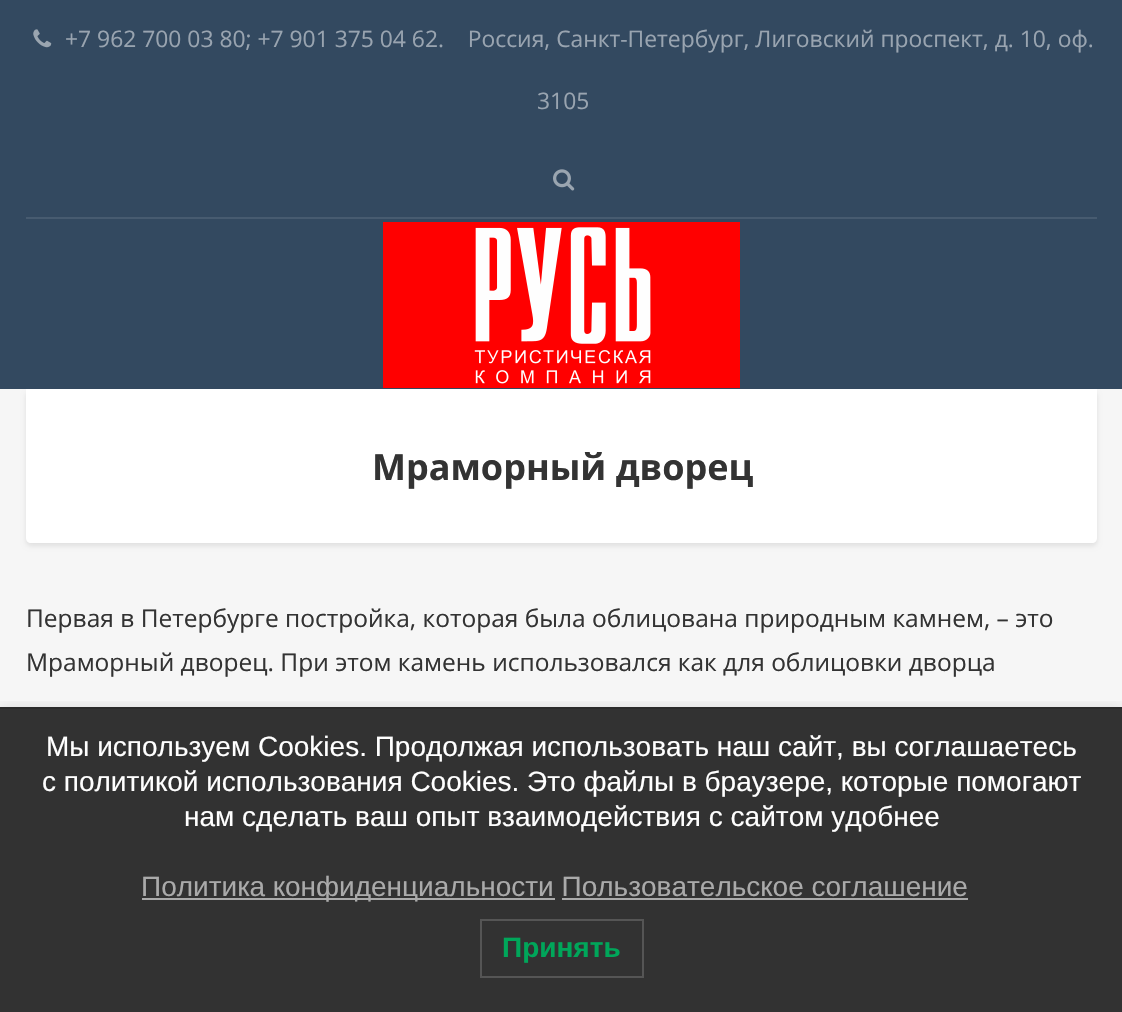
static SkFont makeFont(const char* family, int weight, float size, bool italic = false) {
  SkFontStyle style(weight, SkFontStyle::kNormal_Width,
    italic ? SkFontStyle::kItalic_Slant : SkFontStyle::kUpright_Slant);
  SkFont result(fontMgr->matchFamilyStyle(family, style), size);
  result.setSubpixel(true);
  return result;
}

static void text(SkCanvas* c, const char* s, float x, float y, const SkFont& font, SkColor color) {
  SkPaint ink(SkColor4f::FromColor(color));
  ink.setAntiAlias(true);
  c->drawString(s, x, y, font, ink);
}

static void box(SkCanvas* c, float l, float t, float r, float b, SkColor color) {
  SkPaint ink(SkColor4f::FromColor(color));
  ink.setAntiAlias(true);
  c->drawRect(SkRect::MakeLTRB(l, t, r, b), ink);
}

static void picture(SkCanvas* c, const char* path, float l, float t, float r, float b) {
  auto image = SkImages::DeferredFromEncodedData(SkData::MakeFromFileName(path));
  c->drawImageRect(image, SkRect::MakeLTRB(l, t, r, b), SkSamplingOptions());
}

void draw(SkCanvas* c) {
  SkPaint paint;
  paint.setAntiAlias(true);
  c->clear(0xfff6f6f6);
  box(c, 0, 0, 1122, 389, 0xff334960);
  picture(c, "img_01.png", 33, 29, 52, 48);
  SkFont face1 = makeFont("Open Sans", 400, 22.85f);
  text(c, "+7 962 700 03 80; +7 901 375 04 62.    Россия, Санкт-Петербург, Лиговский проспект, д. 10, оф.", 65, 47, face1, 0xff99a4b0);
  text(c, "3105", 537, 109, face1, 0xff99a4b0);
  picture(c, "img_02.png", 553, 169, 575, 191);
  box(c, 26, 217, 1097, 219, 0xff475b70);
  picture(c, "img_03.png", 383, 222, 740, 388);
  paint.setColor(0x17000000);
  paint.setMaskFilter(SkMaskFilter::MakeBlur(kNormal_SkBlurStyle, 2.5f));
  c->drawRoundRect(SkRect::MakeLTRB(26, 392, 1097, 546), 5, 5, paint);
  paint.setMaskFilter(nullptr);
  paint.setColor(0xffffffff);
  c->drawPath(SkPathBuilder().moveTo(26, 389).lineTo(1097, 389).lineTo(1097, 538).cubicTo(1097, 541, 1095, 543, 1092, 543).lineTo(31, 543).cubicTo(28, 543, 26, 541, 26, 538).close().detach(), paint);
  SkFont face2 = makeFont("Open Sans", 700, 36);
  text(c, "Мраморный дворец", 372, 480, face2, 0xff333333);
  SkFont face3 = makeFont("Open Sans", 400, 24.5f);
  text(c, "Первая в Петербурге постройка, которая была облицована природным камнем, – это", 26, 627, face3, 0xff333333);
  text(c, "Мраморный дворец. При этом камень использовался как для облицовки дворца", 26, 671, face3, 0xff333333);
  c->save();
  c->clipRect(SkRect::MakeLTRB(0, 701, 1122, 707));
  paint.setColor(0x1a000000);
  paint.setMaskFilter(SkMaskFilter::MakeBlur(kNormal_SkBlurStyle, 7));
  c->drawRect(SkRect::MakeLTRB(0, 707, 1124, 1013), paint);
  paint.setMaskFilter(nullptr);
  c->restore();
  box(c, 0, 709, 1122, 1012, 0xf72b2b2b);
  box(c, 0, 707, 1122, 709, 0xff2b2b2b);
  SkFont face4 = makeFont("Liberation Sans", 400, 28);
  text(c, "Мы используем Cookies. Продолжая использовать наш сайт, вы соглашаетесь", 46, 756, face4, 0xffffffff);
  text(c, "с политикой использования Cookies. Это файлы в браузере, которые помогают", 42, 791, face4, 0xffffffff);
  text(c, "нам сделать ваш опыт взаимодействия с сайтом удобнее", 184, 826, face4, 0xffffffff);
  box(c, 142, 898, 555, 900, 0xffaaaaaa);
  text(c, "Политика конфиденциальности Пользовательское соглашение", 141, 896, face4, 0xffaaaaaa);
  box(c, 562, 898, 968, 900, 0xffaaaaaa);
  paint.setStyle(SkPaint::kStroke_Style);
  paint.setStrokeWidth(2);
  paint.setColor(0xff555555);
  c->drawRect(SkRect::MakeLTRB(481, 920, 643, 977), paint);
  SkFont face5 = makeFont("Liberation Sans", 700, 28);
  text(c, "Принять", 502, 957, face5, 0xff00a65a);
}
